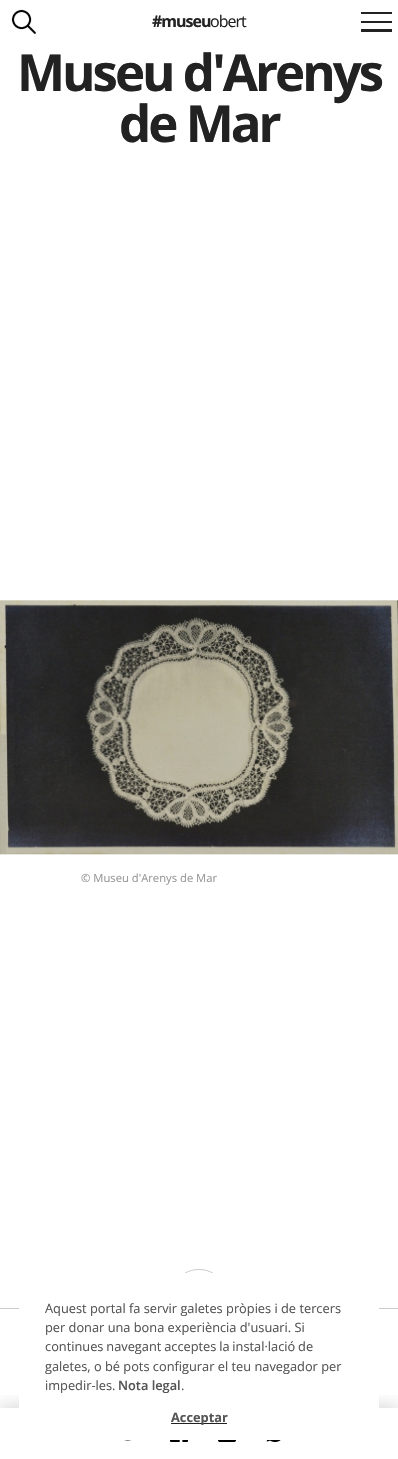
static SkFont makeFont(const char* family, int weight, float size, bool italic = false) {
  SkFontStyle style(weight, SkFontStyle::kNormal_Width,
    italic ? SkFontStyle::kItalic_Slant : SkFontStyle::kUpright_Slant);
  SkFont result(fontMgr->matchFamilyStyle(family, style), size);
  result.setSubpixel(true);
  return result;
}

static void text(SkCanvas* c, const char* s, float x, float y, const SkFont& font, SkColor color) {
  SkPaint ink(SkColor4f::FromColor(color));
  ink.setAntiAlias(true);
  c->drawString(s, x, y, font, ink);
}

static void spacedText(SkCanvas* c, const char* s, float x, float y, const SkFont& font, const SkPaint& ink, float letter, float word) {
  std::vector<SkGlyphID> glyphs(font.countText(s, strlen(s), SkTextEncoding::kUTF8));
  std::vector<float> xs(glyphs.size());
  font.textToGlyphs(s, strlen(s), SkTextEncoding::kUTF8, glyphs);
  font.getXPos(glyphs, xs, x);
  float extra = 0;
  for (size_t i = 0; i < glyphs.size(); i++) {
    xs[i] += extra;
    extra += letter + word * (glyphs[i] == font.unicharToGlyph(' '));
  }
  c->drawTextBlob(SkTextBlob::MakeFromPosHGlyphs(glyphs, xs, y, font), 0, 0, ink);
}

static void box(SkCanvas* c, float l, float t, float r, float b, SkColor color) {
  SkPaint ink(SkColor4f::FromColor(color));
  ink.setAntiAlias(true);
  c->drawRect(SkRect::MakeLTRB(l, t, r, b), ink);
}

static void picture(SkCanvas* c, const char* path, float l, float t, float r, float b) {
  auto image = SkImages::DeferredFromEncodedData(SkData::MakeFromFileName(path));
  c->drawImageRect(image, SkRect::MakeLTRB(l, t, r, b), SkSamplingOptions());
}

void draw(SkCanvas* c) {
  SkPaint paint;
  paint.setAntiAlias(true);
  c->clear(0xffffffff);
  picture(c, "img_01.png", 11, 9, 37, 35);
  box(c, 361, 21, 392, 23, 0xff222222);
  box(c, 361, 12, 392, 14, 0xff222222);
  box(c, 361, 29, 392, 32, 0xff222222);
  SkFont face1 = makeFont("Open Sans", 700, 16);
  paint.setColor(0xff222222);
  spacedText(c, "#museu", 152, 27, face1, paint, -1, 0);
  SkFont face2 = makeFont("Open Sans", 400, 16);
  spacedText(c, "obert", 210, 27, face2, paint, -1, 0);
  SkFont face3 = makeFont("Open Sans", 700, 51);
  spacedText(c, "Museu d'Arenys", 17, 91, face3, paint, -3, 0);
  spacedText(c, "de Mar", 119, 142, face3, paint, -3, 0);
  picture(c, "img_02.png", 0, 600, 398, 855);
  SkFont face4 = makeFont("Open Sans", 400, 11.25f);
  text(c, "© Museu d'Arenys de Mar", 81, 882, face4, 0xff989898);
  box(c, 0, 1308, 398, 1309, 0xffcccccc);
  paint.setColor(0xffffffff);
  c->drawPath(SkPathBuilder().moveTo(170, 1298).cubicTo(170, 1282, 183, 1269, 199, 1269).cubicTo(215, 1269, 228, 1282, 228, 1298).cubicTo(228, 1314, 215, 1327, 199, 1327).cubicTo(183, 1327, 170, 1314, 170, 1298).close().detach(), paint);
  paint.setStyle(SkPaint::kStroke_Style);
  paint.setStrokeWidth(1);
  paint.setColor(0xffcccccc);
  c->drawPath(SkPathBuilder().moveTo(170.5f, 1298).cubicTo(170.5f, 1282.5f, 183, 1269.5f, 199, 1269.5f).cubicTo(215, 1269.5f, 227.5f, 1282.5f, 227.5f, 1298).cubicTo(227.5f, 1314, 215, 1327, 199, 1327).cubicTo(183, 1327, 170.5f, 1314, 170.5f, 1298).close().detach(), paint);
  c->save();
  c->clipRect(SkRect::MakeLTRB(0, 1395, 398, 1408));
  paint.setStyle(SkPaint::kFill_Style);
  paint.setColor(0x33000000);
  paint.setMaskFilter(SkMaskFilter::MakeBlur(kNormal_SkBlurStyle, 10));
  c->drawRect(SkRect::MakeLTRB(0, 1408, 398, 1459), paint);
  paint.setMaskFilter(nullptr);
  c->restore();
  picture(c, "img_03.png", 124, 1440, 132, 1441);
  picture(c, "img_04.png", 170, 1440, 188, 1442);
  picture(c, "img_05.png", 218, 1440, 236, 1442);
  picture(c, "img_06.png", 266, 1440, 281, 1442);
  box(c, 19, 1273, 379, 1408, 0xffffffff);
  SkFont face5 = makeFont("Open Sans", 400, 12.8f);
  text(c, "Aquest portal fa servir galetes pròpies i de tercers", 45, 1313, face5, 0xff555555);
  text(c, "per donar una bona experiència d'usuari. Si", 45, 1332, face5, 0xff555555);
  paint.setColor(0xff555555);
  spacedText(c, "continues navegant acceptes la instal·lació de", 45, 1351, face5, paint, 0, -0.5f);
  text(c, "galetes, o bé pots configurar el teu navegador per", 45, 1371, face5, 0xff555555);
  text(c, "impedir-les.", 45, 1390, face5, 0xff555555);
  SkFont face6 = makeFont("Open Sans", 600, 12.8f);
  text(c, "Nota legal", 118, 1390, face6, 0xff555555);
  text(c, ".", 181, 1390, face5, 0xff555555);
  box(c, 171, 1423, 227, 1424, 0xff222222);
  SkFont face7 = makeFont("Open Sans", 700, 12.8f);
  text(c, "Acceptar", 171, 1422, face7, 0xff555555);
}
